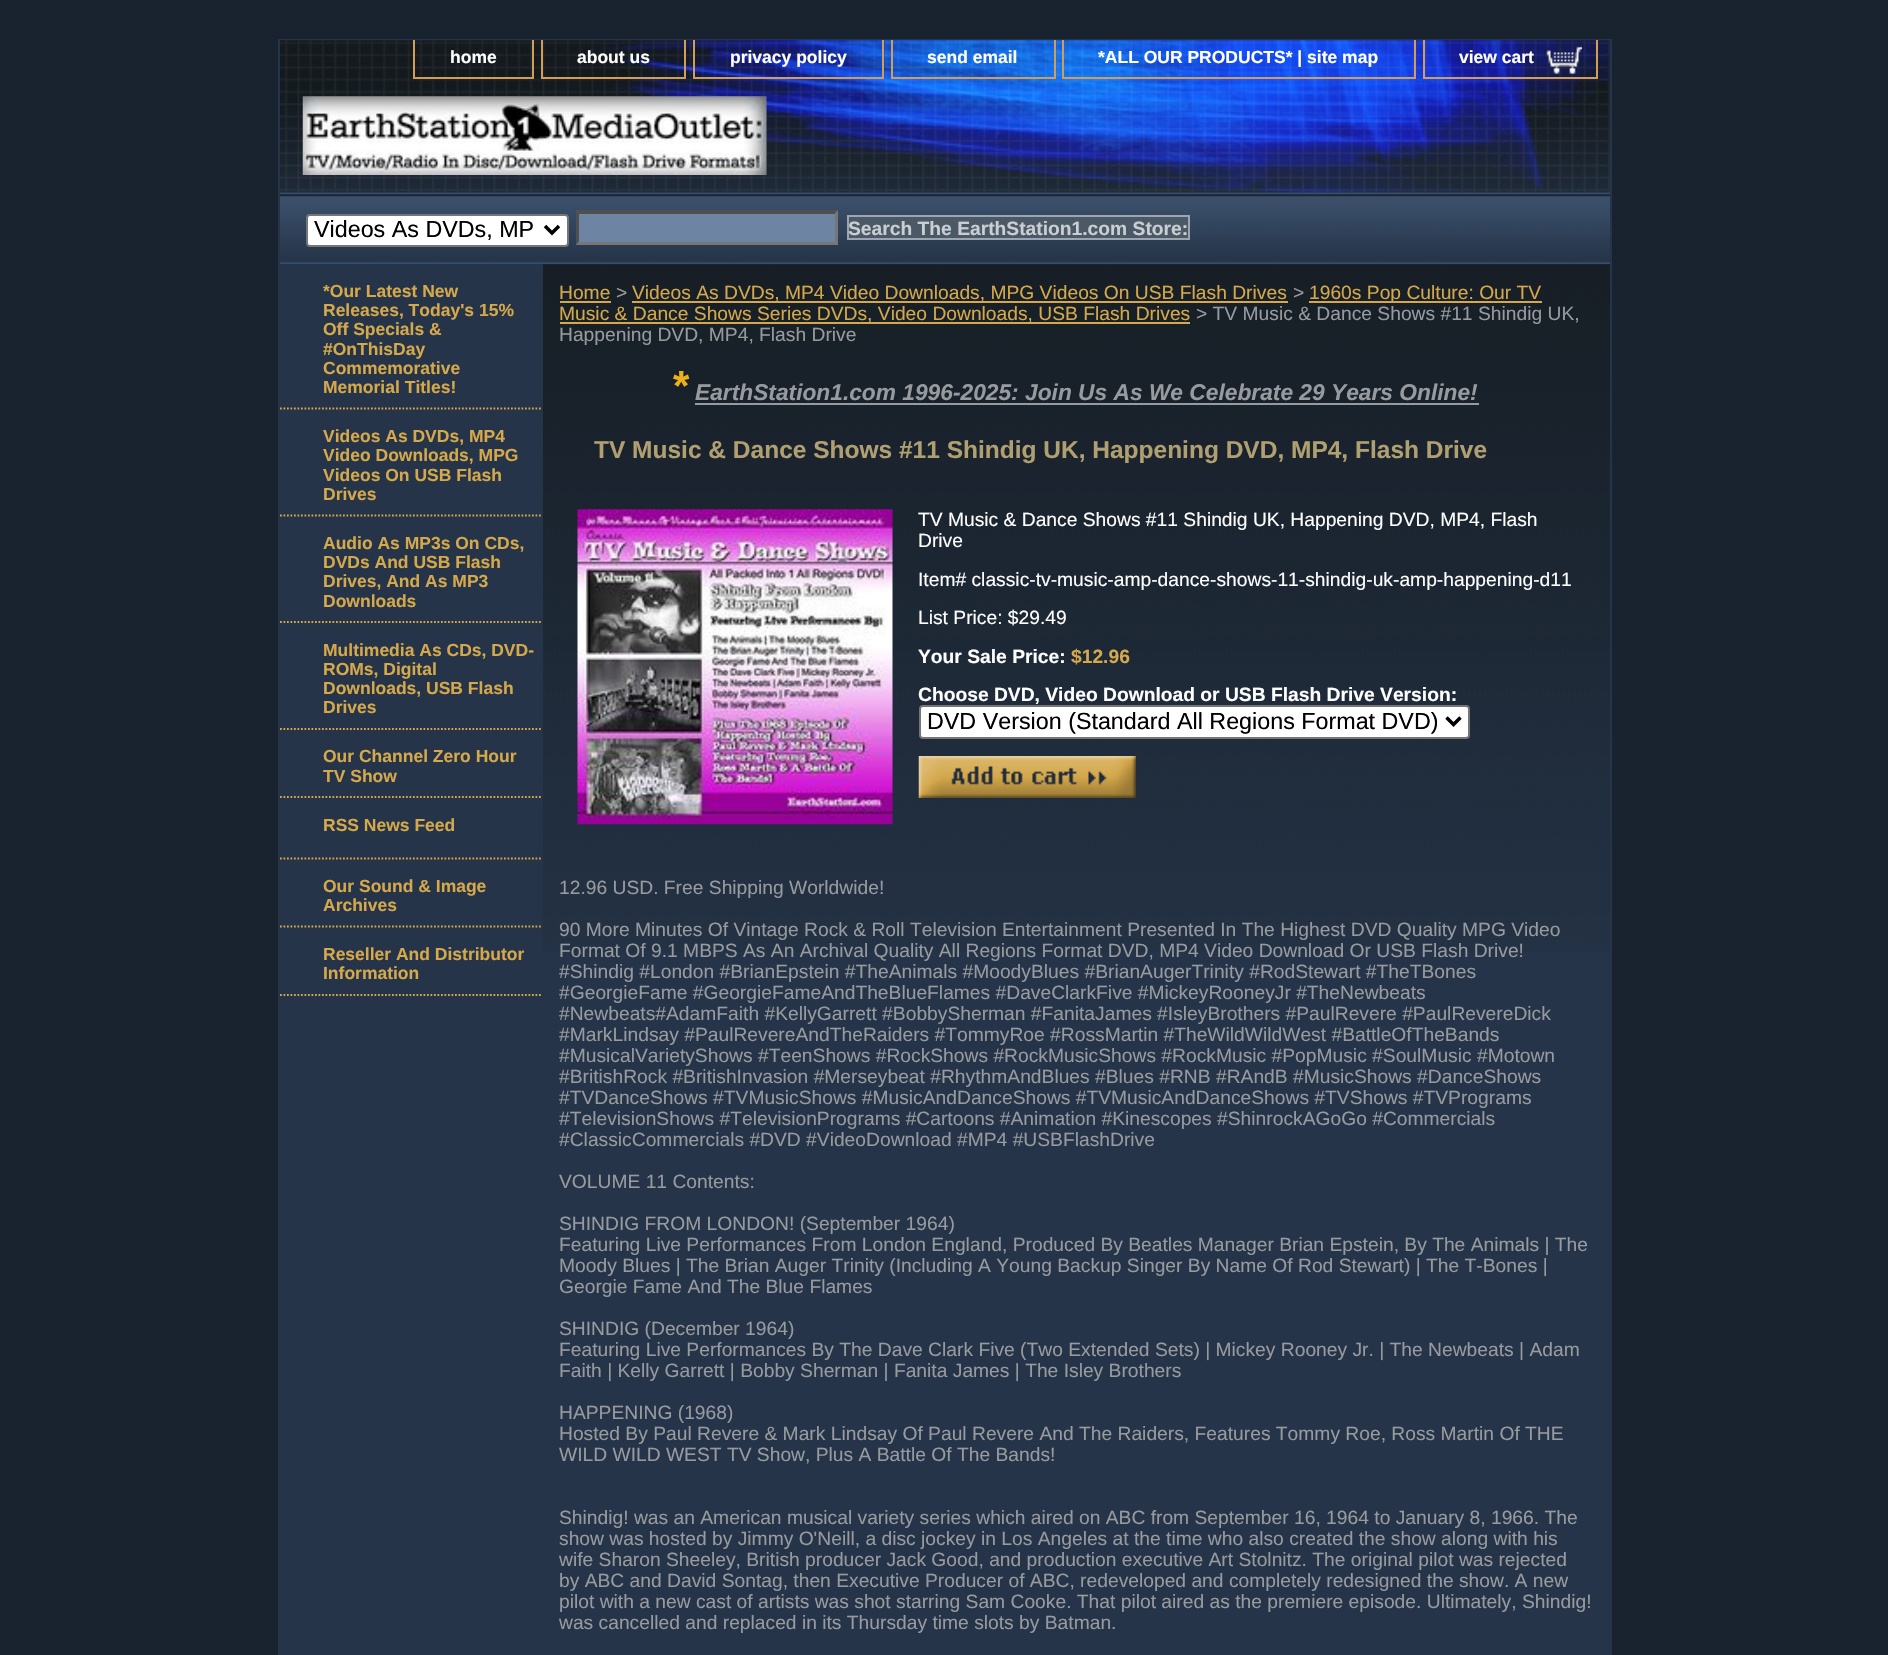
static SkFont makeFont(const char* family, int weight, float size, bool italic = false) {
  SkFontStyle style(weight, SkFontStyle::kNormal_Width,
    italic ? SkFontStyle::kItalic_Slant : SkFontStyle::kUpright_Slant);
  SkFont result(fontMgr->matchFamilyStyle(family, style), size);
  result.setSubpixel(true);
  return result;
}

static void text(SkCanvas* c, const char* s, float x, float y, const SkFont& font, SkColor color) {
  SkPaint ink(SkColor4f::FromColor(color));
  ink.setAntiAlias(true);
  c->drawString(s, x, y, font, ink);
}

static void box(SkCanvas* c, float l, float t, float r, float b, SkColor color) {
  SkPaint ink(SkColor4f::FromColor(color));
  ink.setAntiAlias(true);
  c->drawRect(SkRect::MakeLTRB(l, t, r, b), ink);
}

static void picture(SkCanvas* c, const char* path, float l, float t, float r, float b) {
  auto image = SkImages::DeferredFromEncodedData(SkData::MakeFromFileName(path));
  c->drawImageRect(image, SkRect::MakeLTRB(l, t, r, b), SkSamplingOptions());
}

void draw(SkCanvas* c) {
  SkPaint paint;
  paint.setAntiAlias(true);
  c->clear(0xff192330);
  box(c, 543, 952, 1610, 1655, 0xff253448);
  picture(c, "img_01.png", 280, 192, 1610, 952);
  paint.setStyle(SkPaint::kStroke_Style);
  paint.setStrokeWidth(2);
  paint.setColor(0xff253448);
  c->drawRect(SkRect::MakeLTRB(279, 40, 1611, 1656), paint);
  picture(c, "img_02.png", 280, 40, 1610, 193);
  box(c, 532, 40, 534, 79, 0xffd29d58);
  box(c, 413, 77, 534, 79, 0xffd29d58);
  box(c, 413, 40, 415, 79, 0xffd29d58);
  SkFont face1 = makeFont("Liberation Sans", 700, 17.5f);
  text(c, "home", 450, 63, face1, 0xffffffff);
  box(c, 684, 40, 686, 79, 0xffd29d58);
  box(c, 541, 77, 686, 79, 0xffd29d58);
  box(c, 541, 40, 543, 79, 0xffd29d58);
  text(c, "about us", 577, 63, face1, 0xffffffff);
  box(c, 882, 40, 884, 79, 0xffd29d58);
  box(c, 693, 77, 884, 79, 0xffd29d58);
  box(c, 693, 40, 695, 79, 0xffd29d58);
  text(c, "privacy policy", 730, 63, face1, 0xffffffff);
  box(c, 1054, 40, 1056, 79, 0xffd29d58);
  box(c, 891, 77, 1055, 79, 0xffd29d58);
  box(c, 891, 40, 893, 79, 0xffd29d58);
  text(c, "send email", 927, 63, face1, 0xffffffff);
  box(c, 1414, 40, 1416, 79, 0xffd29d58);
  box(c, 1062, 77, 1416, 79, 0xffd29d58);
  box(c, 1062, 40, 1064, 79, 0xffd29d58);
  text(c, "*ALL OUR PRODUCTS* | site map", 1098, 63, face1, 0xffffffff);
  box(c, 1596, 40, 1598, 79, 0xffd29d58);
  box(c, 1423, 77, 1598, 79, 0xffd29d58);
  box(c, 1423, 40, 1425, 79, 0xffd29d58);
  picture(c, "img_03.png", 1546, 46, 1582, 74);
  text(c, "view cart", 1459, 63, face1, 0xffffffff);
  picture(c, "img_04.png", 302, 96, 767, 175);
  picture(c, "img_05.png", 280, 192, 1610, 265);
  paint.setStyle(SkPaint::kFill_Style);
  paint.setColor(0xffffffff);
  c->drawRoundRect(SkRect::MakeLTRB(307, 215, 568, 246), 3, 3, paint);
  paint.setStyle(SkPaint::kStroke_Style);
  paint.setColor(0xff767676);
  c->drawRoundRect(SkRect::MakeLTRB(307, 215, 568, 246), 3, 3, paint);
  paint.setStrokeWidth(3.5f);
  paint.setColor(0xff000000);
  c->drawPath(SkPathBuilder().moveTo(545, 226).lineTo(552, 233).lineTo(559, 226).detach(), paint);
  SkFont face2 = makeFont("Liberation Sans", 400, 23.3f);
  text(c, "Videos As DVDs, MP", 314, 237, face2, 0xff000000);
  box(c, 576, 210, 838, 245, 0xff6d84a2);
  paint.setStyle(SkPaint::kFill_Style);
  paint.setColor(0xff4f4f4f);
  c->drawPath(SkPathBuilder().moveTo(576, 210).lineTo(838, 210).lineTo(835, 214).lineTo(579, 214).close().detach(), paint);
  paint.setColor(0xff767676);
  c->drawPath(SkPathBuilder().moveTo(838, 210).lineTo(838, 245).lineTo(835, 241.5f).lineTo(835, 213.5f).close().detach(), paint);
  c->drawPath(SkPathBuilder().moveTo(838, 245).lineTo(576, 245).lineTo(579, 242).lineTo(835, 242).close().detach(), paint);
  paint.setColor(0xff4f4f4f);
  c->drawPath(SkPathBuilder().moveTo(576, 245).lineTo(576, 210).lineTo(579, 213.5f).lineTo(579, 241.5f).close().detach(), paint);
  paint.setColor(0xff4b5967);
  c->drawRect(SkRect::MakeLTRB(848, 216, 1189, 239), paint);
  paint.setStyle(SkPaint::kStroke_Style);
  paint.setStrokeWidth(2);
  paint.setColor(0xff9ca5b2);
  c->drawRect(SkRect::MakeLTRB(848, 216, 1189, 239), paint);
  SkFont face3 = makeFont("Liberation Sans", 700, 19.25f);
  text(c, "Search The EarthStation1.com Store:", 848, 235, face3, 0xffcaced3);
  box(c, 280, 264, 543, 1655, 0xff253448);
  paint.setStrokeWidth(1.8f);
  paint.setColor(0xffd4a84b);
  paint.setPathEffect(SkDashPathEffect::Make({{1.75f, 1.75f}}, 0));
  c->drawPath(SkPathBuilder().moveTo(280, 408.5f).lineTo(542.5f, 408.5f).detach(), paint);
  paint.setPathEffect(nullptr);
  text(c, "*Our Latest New", 323, 297, face1, 0xffd4a84b);
  text(c, "Releases, Today's 15%", 323, 316, face1, 0xffd4a84b);
  text(c, "Off Specials &", 323, 335, face1, 0xffd4a84b);
  text(c, "#OnThisDay", 323, 355, face1, 0xffd4a84b);
  text(c, "Commemorative", 323, 374, face1, 0xffd4a84b);
  text(c, "Memorial Titles!", 323, 393, face1, 0xffd4a84b);
  paint.setPathEffect(SkDashPathEffect::Make({{1.75f, 1.75f}}, 0));
  c->drawPath(SkPathBuilder().moveTo(280, 515.5f).lineTo(542.5f, 515.5f).detach(), paint);
  paint.setPathEffect(nullptr);
  text(c, "Videos As DVDs, MP4", 323, 442, face1, 0xffd4a84b);
  text(c, "Video Downloads, MPG", 323, 461, face1, 0xffd4a84b);
  text(c, "Videos On USB Flash", 323, 481, face1, 0xffd4a84b);
  text(c, "Drives", 323, 500, face1, 0xffd4a84b);
  paint.setPathEffect(SkDashPathEffect::Make({{1.75f, 1.75f}}, 0));
  c->drawPath(SkPathBuilder().moveTo(280, 622).lineTo(542.5f, 622).detach(), paint);
  paint.setPathEffect(nullptr);
  text(c, "Audio As MP3s On CDs,", 323, 549, face1, 0xffd4a84b);
  text(c, "DVDs And USB Flash", 323, 568, face1, 0xffd4a84b);
  text(c, "Drives, And As MP3", 323, 587, face1, 0xffd4a84b);
  text(c, "Downloads", 323, 607, face1, 0xffd4a84b);
  paint.setPathEffect(SkDashPathEffect::Make({{1.75f, 1.75f}}, 0));
  c->drawPath(SkPathBuilder().moveTo(280, 729).lineTo(542.5f, 729).detach(), paint);
  paint.setPathEffect(nullptr);
  text(c, "Multimedia As CDs, DVD-", 323, 656, face1, 0xffd4a84b);
  text(c, "ROMs, Digital", 323, 675, face1, 0xffd4a84b);
  text(c, "Downloads, USB Flash", 323, 694, face1, 0xffd4a84b);
  text(c, "Drives", 323, 713, face1, 0xffd4a84b);
  paint.setPathEffect(SkDashPathEffect::Make({{1.75f, 1.75f}}, 0));
  c->drawPath(SkPathBuilder().moveTo(280, 797).lineTo(542.5f, 797).detach(), paint);
  paint.setPathEffect(nullptr);
  text(c, "Our Channel Zero Hour", 323, 762, face1, 0xffd4a84b);
  text(c, "TV Show", 323, 782, face1, 0xffd4a84b);
  paint.setPathEffect(SkDashPathEffect::Make({{1.75f, 1.75f}}, 0));
  c->drawPath(SkPathBuilder().moveTo(280, 858.5f).lineTo(542.5f, 858.5f).detach(), paint);
  paint.setPathEffect(nullptr);
  text(c, "RSS News Feed", 323, 831, face1, 0xffd4a84b);
  paint.setPathEffect(SkDashPathEffect::Make({{1.75f, 1.75f}}, 0));
  c->drawPath(SkPathBuilder().moveTo(280, 926.5f).lineTo(542.5f, 926.5f).detach(), paint);
  paint.setPathEffect(nullptr);
  text(c, "Our Sound & Image", 323, 892, face1, 0xffd4a84b);
  text(c, "Archives", 323, 911, face1, 0xffd4a84b);
  paint.setPathEffect(SkDashPathEffect::Make({{1.75f, 1.75f}}, 0));
  c->drawPath(SkPathBuilder().moveTo(280, 995).lineTo(542.5f, 995).detach(), paint);
  paint.setPathEffect(nullptr);
  text(c, "Reseller And Distributor", 323, 960, face1, 0xffd4a84b);
  text(c, "Information", 323, 979, face1, 0xffd4a84b);
  SkFont face4 = makeFont("Liberation Sans", 400, 19.25f);
  text(c, "Home", 559, 299, face4, 0xffd4a84b);
  box(c, 560, 301, 611, 303, 0xffd4a84b);
  text(c, ">", 616, 299, face4, 0xff979a9e);
  box(c, 632, 301, 1288, 303, 0xffd4a84b);
  text(c, "Videos As DVDs, MP4 Video Downloads, MPG Videos On USB Flash Drives", 632, 299, face4, 0xffd4a84b);
  text(c, ">", 1293, 299, face4, 0xff979a9e);
  box(c, 1309, 301, 1542, 303, 0xffd4a84b);
  text(c, "1960s Pop Culture: Our TV", 1309, 299, face4, 0xffd4a84b);
  box(c, 560, 322, 1190, 324, 0xffd4a84b);
  text(c, "Music & Dance Shows Series DVDs, Video Downloads, USB Flash Drives", 559, 320, face4, 0xffd4a84b);
  text(c, "> TV Music & Dance Shows #11 Shindig UK,", 1196, 320, face4, 0xff979a9e);
  text(c, "Happening DVD, MP4, Flash Drive", 559, 341, face4, 0xff979a9e);
  SkFont face5 = makeFont("Liberation Sans", 700, 42);
  text(c, "*", 673, 400, face5, 0xffedb11a);
  SkFont face6 = makeFont("Liberation Sans", 700, 22.75f, true);
  text(c, "EarthStation1.com 1996-2025: Join Us As We Celebrate 29 Years Online!", 695, 400, face6, 0xff979a9e);
  box(c, 695, 403, 1479, 405, 0xff979a9e);
  SkFont face7 = makeFont("Liberation Sans", 700, 24.5f);
  text(c, "TV Music & Dance Shows #11 Shindig UK, Happening DVD, MP4, Flash Drive", 594, 458, face7, 0xffb0a071);
  picture(c, "img_06.png", 577, 509, 893, 825);
  text(c, "TV Music & Dance Shows #11 Shindig UK, Happening DVD, MP4, Flash", 918, 526, face4, 0xffffffff);
  text(c, "Drive", 918, 547, face4, 0xffffffff);
  text(c, "Item# classic-tv-music-amp-dance-shows-11-shindig-uk-amp-happening-d11", 918, 586, face4, 0xffffffff);
  text(c, "List Price: $29.49", 918, 624, face4, 0xffffffff);
  text(c, "Your Sale Price:", 918, 663, face3, 0xffffffff);
  text(c, "$12.96", 1071, 663, face3, 0xffd4a84b);
  text(c, "Choose DVD, Video Download or USB Flash Drive Version:", 918, 701, face3, 0xffffffff);
  paint.setStyle(SkPaint::kFill_Style);
  paint.setColor(0xffffffff);
  c->drawRoundRect(SkRect::MakeLTRB(920, 706, 1469, 738), 3, 3, paint);
  paint.setStyle(SkPaint::kStroke_Style);
  paint.setStrokeWidth(2);
  paint.setColor(0xff767676);
  c->drawRoundRect(SkRect::MakeLTRB(920, 706, 1469, 738), 3, 3, paint);
  paint.setStrokeWidth(3.5f);
  paint.setColor(0xff000000);
  c->drawPath(SkPathBuilder().moveTo(1446.5f, 717.5f).lineTo(1453.5f, 724.5f).lineTo(1460.5f, 717.5f).detach(), paint);
  text(c, "DVD Version (Standard All Regions Format DVD)", 927, 729, face2, 0xff000000);
  picture(c, "img_07.png", 918, 756, 1136, 798);
  text(c, "12.96 USD. Free Shipping Worldwide!", 559, 894, face4, 0xff979a9e);
  text(c, "90 More Minutes Of Vintage Rock & Roll Television Entertainment Presented In The Highest DVD Quality MPG Video", 559, 936, face4, 0xff979a9e);
  text(c, "Format Of 9.1 MBPS As An Archival Quality All Regions Format DVD, MP4 Video Download Or USB Flash Drive!", 559, 957, face4, 0xff979a9e);
  text(c, "#Shindig #London #BrianEpstein #TheAnimals #MoodyBlues #BrianAugerTrinity #RodStewart #TheTBones", 559, 978, face4, 0xff979a9e);
  text(c, "#GeorgieFame #GeorgieFameAndTheBlueFlames #DaveClarkFive #MickeyRooneyJr #TheNewbeats", 559, 999, face4, 0xff979a9e);
  text(c, "#Newbeats#AdamFaith #KellyGarrett #BobbySherman #FanitaJames #IsleyBrothers #PaulRevere #PaulRevereDick", 559, 1020, face4, 0xff979a9e);
  text(c, "#MarkLindsay #PaulRevereAndTheRaiders #TommyRoe #RossMartin #TheWildWildWest #BattleOfTheBands", 559, 1041, face4, 0xff979a9e);
  text(c, "#MusicalVarietyShows #TeenShows #RockShows #RockMusicShows #RockMusic #PopMusic #SoulMusic #Motown", 559, 1062, face4, 0xff979a9e);
  text(c, "#BritishRock #BritishInvasion #Merseybeat #RhythmAndBlues #Blues #RNB #RAndB #MusicShows #DanceShows", 559, 1083, face4, 0xff979a9e);
  text(c, "#TVDanceShows #TVMusicShows #MusicAndDanceShows #TVMusicAndDanceShows #TVShows #TVPrograms", 559, 1104, face4, 0xff979a9e);
  text(c, "#TelevisionShows #TelevisionPrograms #Cartoons #Animation #Kinescopes #ShinrockAGoGo #Commercials", 559, 1125, face4, 0xff979a9e);
  text(c, "#ClassicCommercials #DVD #VideoDownload #MP4 #USBFlashDrive", 559, 1146, face4, 0xff979a9e);
  text(c, "VOLUME 11 Contents:", 559, 1188, face4, 0xff979a9e);
  text(c, "SHINDIG FROM LONDON! (September 1964)", 559, 1230, face4, 0xff979a9e);
  text(c, "Featuring Live Performances From London England, Produced By Beatles Manager Brian Epstein, By The Animals | The", 559, 1251, face4, 0xff979a9e);
  text(c, "Moody Blues | The Brian Auger Trinity (Including A Young Backup Singer By Name Of Rod Stewart) | The T-Bones |", 559, 1272, face4, 0xff979a9e);
  text(c, "Georgie Fame And The Blue Flames", 559, 1293, face4, 0xff979a9e);
  text(c, "SHINDIG (December 1964)", 559, 1335, face4, 0xff979a9e);
  text(c, "Featuring Live Performances By The Dave Clark Five (Two Extended Sets) | Mickey Rooney Jr. | The Newbeats | Adam", 559, 1356, face4, 0xff979a9e);
  text(c, "Faith | Kelly Garrett | Bobby Sherman | Fanita James | The Isley Brothers", 559, 1377, face4, 0xff979a9e);
  text(c, "HAPPENING (1968)", 559, 1419, face4, 0xff979a9e);
  text(c, "Hosted By Paul Revere & Mark Lindsay Of Paul Revere And The Raiders, Features Tommy Roe, Ross Martin Of THE", 559, 1440, face4, 0xff979a9e);
  text(c, "WILD WILD WEST TV Show, Plus A Battle Of The Bands!", 559, 1461, face4, 0xff979a9e);
  text(c, "Shindig! was an American musical variety series which aired on ABC from September 16, 1964 to January 8, 1966. The", 559, 1524, face4, 0xff979a9e);
  text(c, "show was hosted by Jimmy O'Neill, a disc jockey in Los Angeles at the time who also created the show along with his", 559, 1545, face4, 0xff979a9e);
  text(c, "wife Sharon Sheeley, British producer Jack Good, and production executive Art Stolnitz. The original pilot was rejected", 559, 1566, face4, 0xff979a9e);
  text(c, "by ABC and David Sontag, then Executive Producer of ABC, redeveloped and completely redesigned the show. A new", 559, 1587, face4, 0xff979a9e);
  text(c, "pilot with a new cast of artists was shot starring Sam Cooke. That pilot aired as the premiere episode. Ultimately, Shindig!", 559, 1608, face4, 0xff979a9e);
  text(c, "was cancelled and replaced in its Thursday time slots by Batman.", 559, 1629, face4, 0xff979a9e);
}
